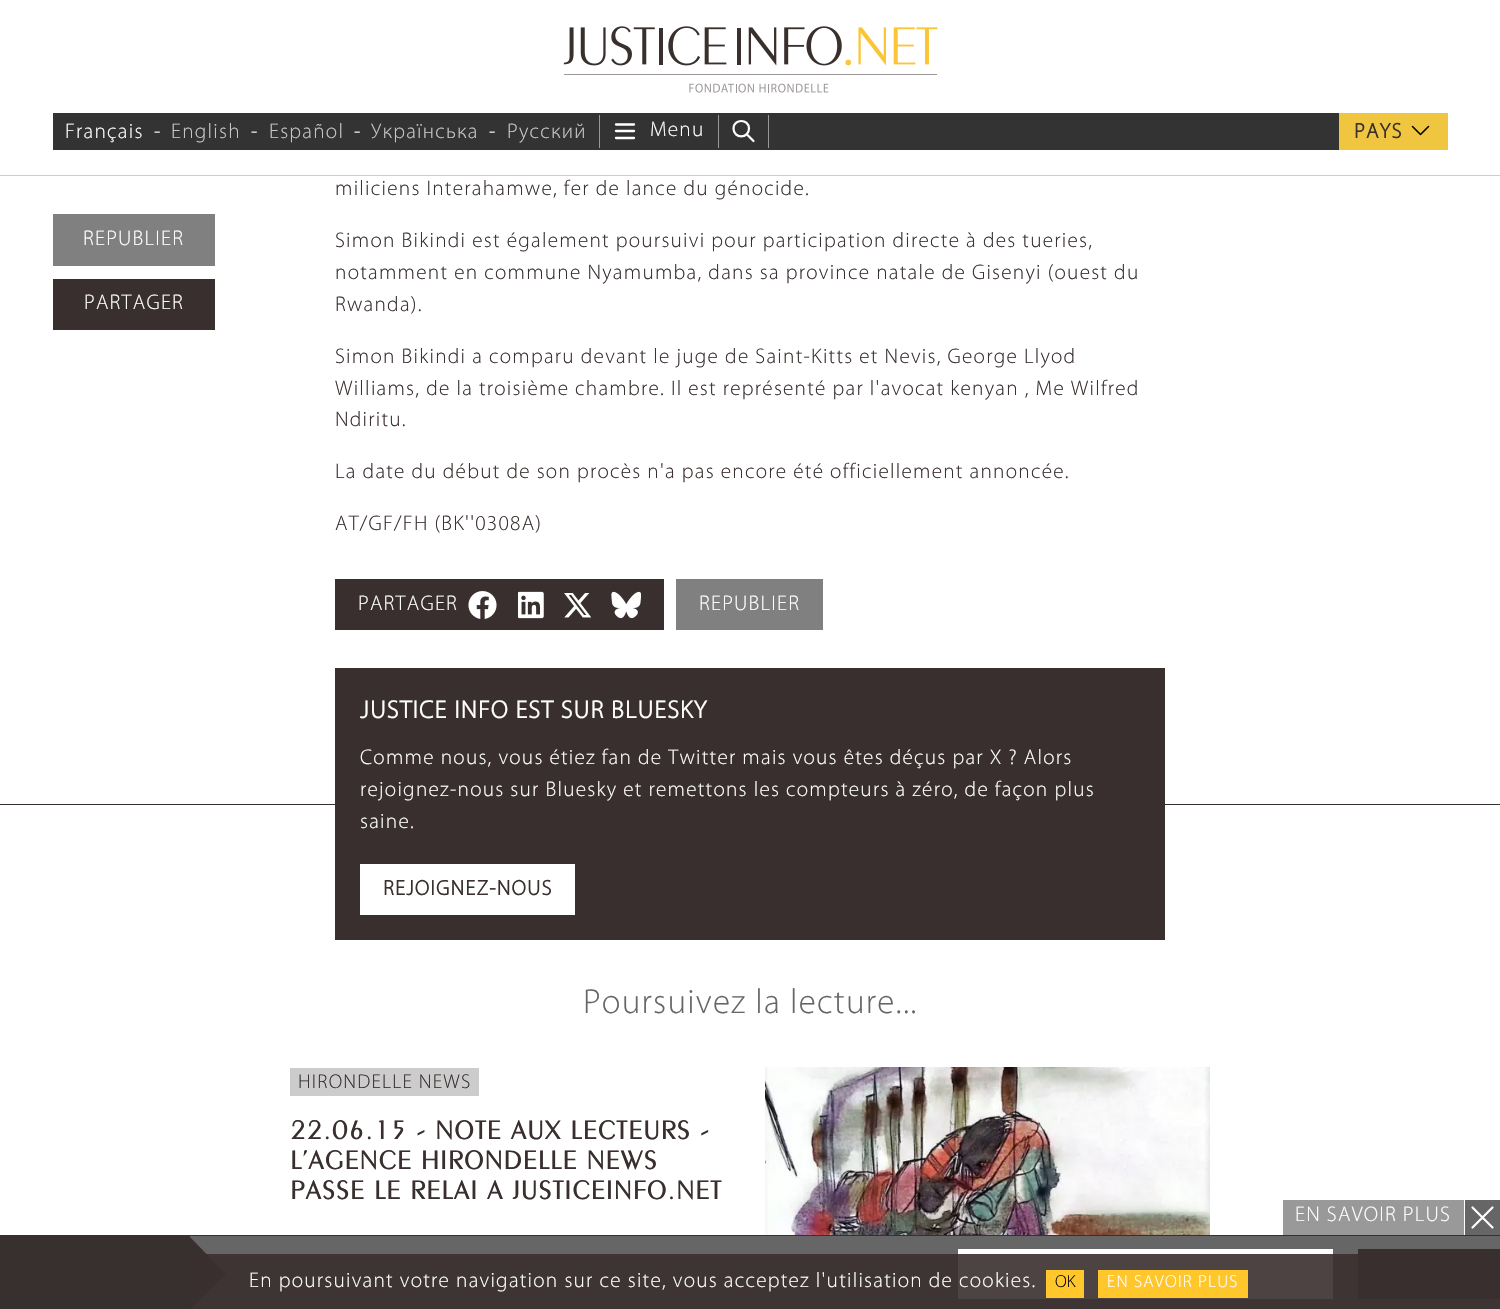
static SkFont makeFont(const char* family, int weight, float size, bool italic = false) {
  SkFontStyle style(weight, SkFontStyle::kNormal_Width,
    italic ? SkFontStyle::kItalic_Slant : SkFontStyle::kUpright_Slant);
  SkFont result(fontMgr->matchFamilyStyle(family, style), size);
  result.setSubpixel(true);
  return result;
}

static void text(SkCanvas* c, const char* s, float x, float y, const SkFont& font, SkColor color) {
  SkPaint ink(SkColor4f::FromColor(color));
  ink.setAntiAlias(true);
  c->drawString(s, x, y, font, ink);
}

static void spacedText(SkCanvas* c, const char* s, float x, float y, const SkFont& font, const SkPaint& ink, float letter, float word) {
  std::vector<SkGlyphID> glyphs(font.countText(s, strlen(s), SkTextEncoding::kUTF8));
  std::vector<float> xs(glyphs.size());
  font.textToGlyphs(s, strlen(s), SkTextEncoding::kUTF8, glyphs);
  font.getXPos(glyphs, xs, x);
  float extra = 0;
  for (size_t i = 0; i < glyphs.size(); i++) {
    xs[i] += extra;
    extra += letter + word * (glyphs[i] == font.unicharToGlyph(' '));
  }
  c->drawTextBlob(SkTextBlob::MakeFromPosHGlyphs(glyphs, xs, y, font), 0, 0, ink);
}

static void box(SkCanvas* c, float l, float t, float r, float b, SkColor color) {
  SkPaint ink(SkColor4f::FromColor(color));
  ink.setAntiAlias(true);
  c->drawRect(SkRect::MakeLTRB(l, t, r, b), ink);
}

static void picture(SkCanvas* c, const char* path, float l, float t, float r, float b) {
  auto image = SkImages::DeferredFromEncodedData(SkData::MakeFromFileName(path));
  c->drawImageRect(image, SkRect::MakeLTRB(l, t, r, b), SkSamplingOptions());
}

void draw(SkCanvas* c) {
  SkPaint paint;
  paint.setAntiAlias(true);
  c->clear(0xffffffff);
  box(c, 0, 175, 1500, 176, 0xffcccccc);
  picture(c, "img_01.png", 563, 26, 938, 93);
  box(c, 53, 113, 1339, 150, 0xff333333);
  SkFont face1 = makeFont("Myriad", 300, 21.25f);
  paint.setColor(0xffffffff);
  spacedText(c, "Français", 65, 138, face1, paint, 1.25f, 0);
  spacedText(c, "-", 154, 138, face1, paint, 1.25f, 0);
  paint.setColor(0xffc7c7c7);
  spacedText(c, "English", 171, 138, face1, paint, 1.25f, 0);
  paint.setColor(0xffffffff);
  spacedText(c, "-", 251, 138, face1, paint, 1.25f, 0);
  paint.setColor(0xffc7c7c7);
  spacedText(c, "Español", 269, 138, face1, paint, 1.25f, 0);
  paint.setColor(0xffffffff);
  spacedText(c, "-", 354, 138, face1, paint, 1.25f, 0);
  paint.setColor(0xffc7c7c7);
  spacedText(c, "Українська", 371, 138, face1, paint, 1.25f, 0);
  paint.setColor(0xffffffff);
  spacedText(c, "-", 489, 138, face1, paint, 1.25f, 0);
  paint.setColor(0xffc7c7c7);
  spacedText(c, "Русский", 507, 138, face1, paint, 1.25f, 0);
  box(c, 718, 115, 719, 148, 0xff999999);
  box(c, 599, 115, 600, 148, 0xff999999);
  paint.setStyle(SkPaint::kStroke_Style);
  paint.setStrokeWidth(2.3f);
  paint.setStrokeCap(SkPaint::kRound_Cap);
  paint.setStrokeJoin(SkPaint::kRound_Join);
  paint.setColor(0xffffffff);
  c->drawPath(SkPathBuilder().moveTo(616, 124.5f).lineTo(634, 124.5f).moveTo(616, 131).lineTo(634, 131).moveTo(616, 138).lineTo(634, 138).detach(), paint);
  paint.setStyle(SkPaint::kFill_Style);
  spacedText(c, "Menu", 650, 136, face1, paint, 1.25f, 0);
  paint.setStyle(SkPaint::kStroke_Style);
  paint.setStrokeWidth(2.2f);
  c->drawPath(SkPathBuilder().moveTo(746.5f, 134).lineTo(753.5f, 141).moveTo(749, 128.5f).cubicTo(749, 139, 733.5f, 139, 733.5f, 128.5f).cubicTo(733.5f, 118.5f, 749, 118.5f, 749, 128.5f).close().detach(), paint);
  box(c, 768, 115, 769, 148, 0xff999999);
  box(c, 1339, 113, 1448, 150, 0xfff0c640);
  SkFont face2 = makeFont("Myriad", 700, 21.25f);
  paint.setStyle(SkPaint::kFill_Style);
  paint.setColor(0xff382f2e);
  spacedText(c, "PAYS", 1354, 138, face2, paint, 1.25f, 0);
  paint.setStyle(SkPaint::kStroke_Style);
  paint.setStrokeWidth(1.6f);
  paint.setColor(0xff000000);
  c->drawPath(SkPathBuilder().moveTo(1428.5f, 126.5f).lineTo(1420.5f, 134.5f).lineTo(1412.5f, 126.5f).detach(), paint);
  box(c, 53, 214, 215, 266, 0xff808080);
  paint.setStyle(SkPaint::kFill_Style);
  paint.setColor(0xffffffff);
  spacedText(c, "REPUBLIER", 83, 245, face1, paint, 1.25f, 0);
  box(c, 53, 279, 215, 330, 0xff382f2e);
  spacedText(c, "PARTAGER", 84, 309, face1, paint, 1.25f, 0);
  paint.setColor(0xff382f2e);
  spacedText(c, "miliciens Interahamwe, fer de lance du génocide.", 335, 195, face1, paint, 1.25f, 0);
  spacedText(c, "Simon Bikindi est également poursuivi pour participation directe à des tueries,", 335, 247, face1, paint, 1.25f, 0);
  spacedText(c, "notamment en commune Nyamumba, dans sa province natale de Gisenyi (ouest du", 335, 279, face1, paint, 1.25f, 0);
  spacedText(c, "Rwanda).", 335, 311, face1, paint, 1.25f, 0);
  spacedText(c, "Simon Bikindi a comparu devant le juge de Saint-Kitts et Nevis, George Llyod", 335, 363, face1, paint, 1.25f, 0);
  spacedText(c, "Williams, de la troisième chambre. Il est représenté par l'avocat kenyan , Me Wilfred", 335, 395, face1, paint, 1.25f, 0);
  spacedText(c, "Ndiritu.", 335, 426, face1, paint, 1.25f, 0);
  spacedText(c, "La date du début de son procès n'a pas encore été officiellement annoncée.", 335, 478, face1, paint, 1.25f, 0);
  spacedText(c, "AT/GF/FH (BK''0308A)", 335, 530, face1, paint, 1.25f, 0);
  box(c, 335, 579, 664, 630, 0xff382f2e);
  paint.setColor(0xffffffff);
  spacedText(c, "PARTAGER", 358, 610, face1, paint, 1.25f, 0);
  picture(c, "img_02.png", 468, 591, 497, 619);
  picture(c, "img_03.png", 518, 591, 544, 619);
  picture(c, "img_04.png", 564, 593, 591, 618);
  picture(c, "img_05.png", 611, 591, 641, 619);
  box(c, 676, 579, 823, 630, 0xff808080);
  spacedText(c, "REPUBLIER", 699, 610, face1, paint, 1.25f, 0);
  box(c, 0, 804, 335, 805, 0xff382f2e);
  box(c, 335, 668, 1165, 940, 0xff382f2e);
  SkFont face3 = makeFont("Myriad", 700, 25);
  spacedText(c, "JUSTICE INFO EST SUR BLUESKY", 360, 718, face3, paint, 1.25f, 0);
  spacedText(c, "Comme nous, vous étiez fan de Twitter mais vous êtes déçus par X ? Alors", 360, 764, face1, paint, 1.25f, 0);
  spacedText(c, "rejoignez-nous sur Bluesky et remettons les compteurs à zéro, de façon plus", 360, 796, face1, paint, 1.25f, 0);
  spacedText(c, "saine.", 360, 828, face1, paint, 1.25f, 0);
  box(c, 360, 864, 575, 915, 0xffffffff);
  paint.setColor(0xff382f2e);
  spacedText(c, "REJOIGNEZ-NOUS", 383, 895, face2, paint, 1.25f, 0);
  box(c, 1165, 804, 1500, 805, 0xff382f2e);
  SkFont face4 = makeFont("Myriad", 300, 35);
  paint.setColor(0xff666666);
  spacedText(c, "Poursuivez la lecture...", 583, 1013, face4, paint, 1.25f, 0);
  box(c, 290, 1068, 479, 1096, 0xffcccccc);
  SkFont face5 = makeFont("Myriad", 300, 20);
  paint.setColor(0xff382f2e);
  spacedText(c, "HIRONDELLE NEWS", 298, 1088, face5, paint, 1.25f, 0);
  SkFont face6 = makeFont("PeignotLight", 700, 27.5f);
  spacedText(c, "22.06.15 - NOTE AUX LECTEURS -", 290, 1139, face6, paint, 1.25f, 0);
  spacedText(c, "L’AGENCE HIRONDELLE NEWS", 290, 1169, face6, paint, 1.25f, 0);
  spacedText(c, "PASSE LE RELAI A JUSTICEINFO.NET", 290, 1199, face6, paint, 1.25f, 0);
  picture(c, "img_06.png", 765, 1067, 1210, 1235);
  box(c, 1283, 1200, 1464, 1235, 0xff999999);
  paint.setColor(0xffffffff);
  spacedText(c, "EN SAVOIR PLUS", 1295, 1221, face1, paint, 1.25f, 0);
  box(c, 1465, 1200, 1500, 1235, 0xff666666);
  paint.setStyle(SkPaint::kStroke_Style);
  paint.setStrokeWidth(2.2f);
  c->drawPath(SkPathBuilder().moveTo(1492.5f, 1207.5f).lineTo(1472.5f, 1227.5f).moveTo(1472.5f, 1207.5f).lineTo(1492.5f, 1227.5f).detach(), paint);
  box(c, 190, 1236, 1500, 1309, 0xff666666);
  box(c, 0, 1235, 1500, 1236, 0xff37302e);
  box(c, 0, 1236, 190, 1309, 0xff37302e);
  paint.setStyle(SkPaint::kFill_Style);
  paint.setColor(0xff37302e);
  c->drawPath(SkPathBuilder().moveTo(189, 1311).lineTo(189, 1236).lineTo(226, 1274).close().detach(), paint);
  box(c, 958, 1249, 1333, 1299, 0xffffffff);
  box(c, 1358, 1249, 1500, 1299, 0xff37302e);
  box(c, 191, 1254, 1500, 1309, 0xe6382f2e);
  paint.setColor(0xffffffff);
  spacedText(c, "En poursuivant votre navigation sur ce site, vous acceptez l'utilisation de cookies.", 249, 1287, face1, paint, 1.25f, 0);
  box(c, 1046, 1270, 1084, 1298, 0xffffc72c);
  SkFont face7 = makeFont("Myriad", 300, 17.5f);
  text(c, "OK", 1055, 1287, face7, 0xff000000);
  box(c, 1098, 1270, 1248, 1298, 0xffffc72c);
  spacedText(c, "EN SAVOIR PLUS", 1107, 1287, face7, paint, 1.25f, 0);
}
